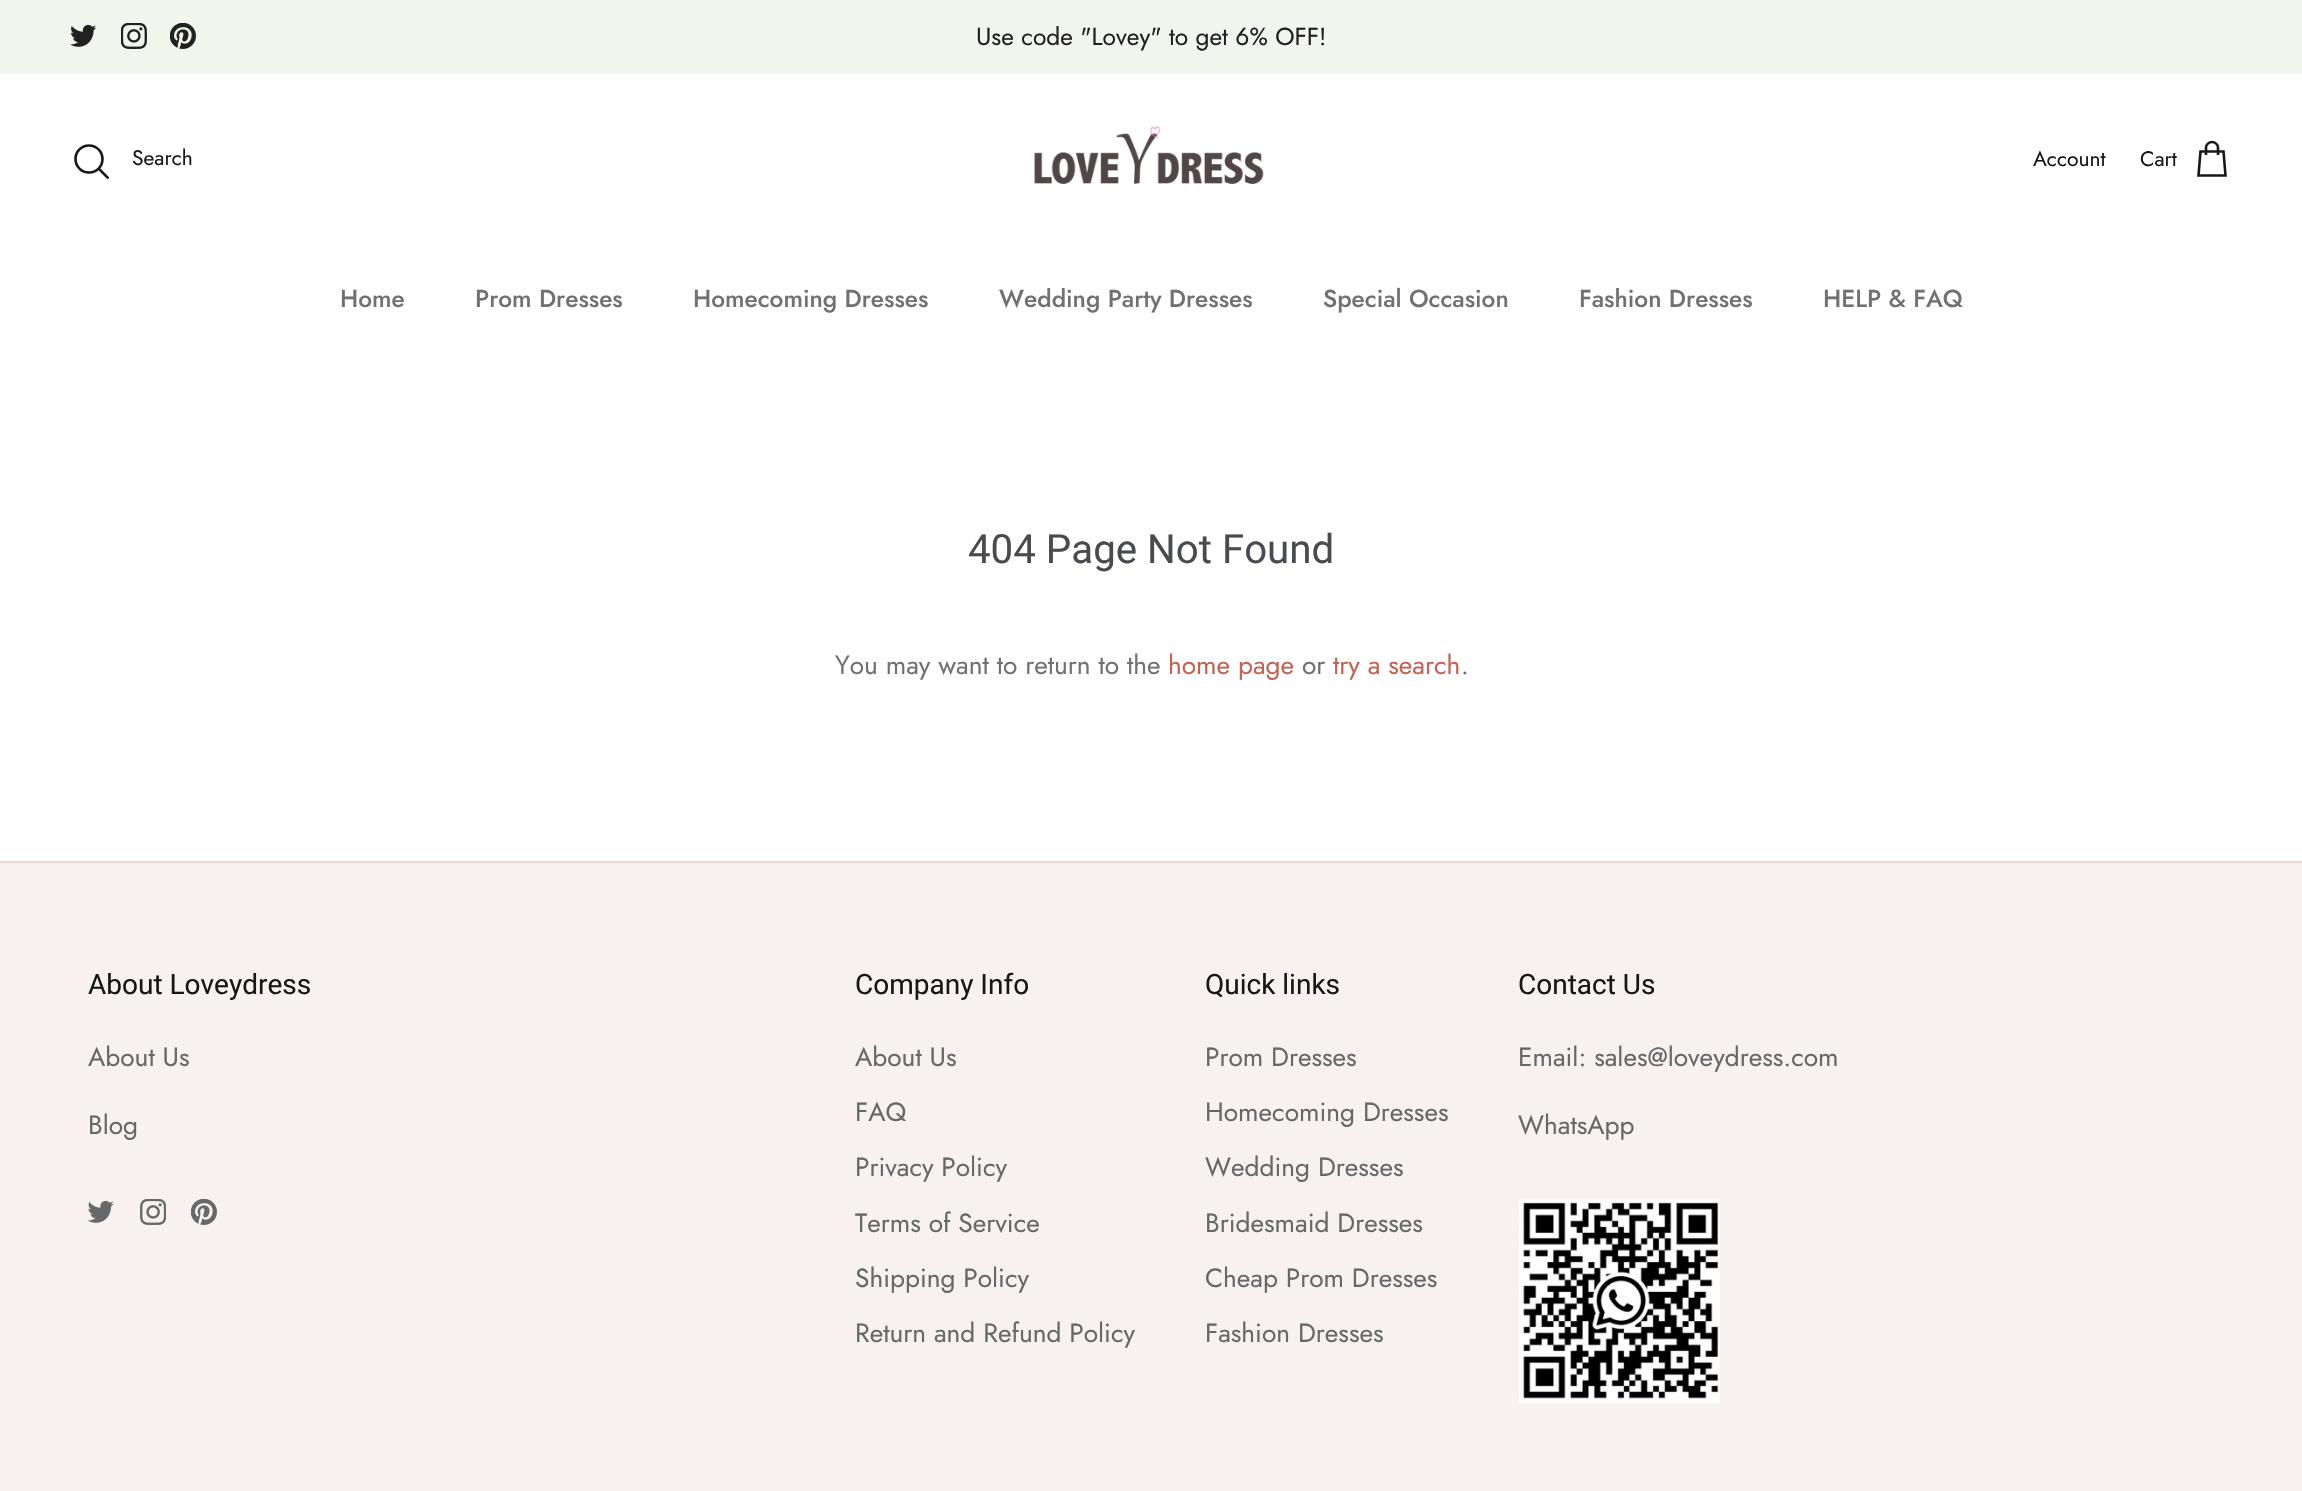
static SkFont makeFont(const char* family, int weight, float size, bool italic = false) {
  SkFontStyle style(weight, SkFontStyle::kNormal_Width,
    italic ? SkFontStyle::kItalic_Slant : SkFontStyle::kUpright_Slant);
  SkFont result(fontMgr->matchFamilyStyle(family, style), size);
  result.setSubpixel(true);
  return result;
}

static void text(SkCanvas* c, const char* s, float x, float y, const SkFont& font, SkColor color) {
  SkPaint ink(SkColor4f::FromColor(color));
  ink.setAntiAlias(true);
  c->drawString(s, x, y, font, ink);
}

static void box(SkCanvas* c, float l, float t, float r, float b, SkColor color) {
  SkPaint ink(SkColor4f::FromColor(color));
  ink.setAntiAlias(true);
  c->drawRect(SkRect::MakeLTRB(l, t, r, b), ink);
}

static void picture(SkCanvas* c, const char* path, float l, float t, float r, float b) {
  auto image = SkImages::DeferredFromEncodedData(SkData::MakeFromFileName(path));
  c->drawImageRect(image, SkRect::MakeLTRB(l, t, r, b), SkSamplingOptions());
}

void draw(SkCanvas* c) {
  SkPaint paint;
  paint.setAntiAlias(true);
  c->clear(0xffffffff);
  box(c, 0, 0, 2302, 74, 0xfff2f4ee);
  picture(c, "img_01.png", 70, 24, 96, 47);
  picture(c, "img_02.png", 121, 23, 147, 49);
  picture(c, "img_03.png", 170, 23, 196, 49);
  SkFont face1 = makeFont("Jost", 400, 24.5f);
  text(c, "Use code \"Lovey\" to get 6% OFF!", 976, 45, face1, 0xff212121);
  paint.setStyle(SkPaint::kStroke_Style);
  paint.setStrokeWidth(2.6f);
  paint.setColor(0xff171717);
  c->drawCircle(89, 159, 13.5f, paint);
  SkFont face2 = makeFont("Jost", 400, 21);
  text(c, "Search", 132, 165, face2, 0xff171717);
  paint.setStrokeCap(SkPaint::kSquare_Cap);
  c->drawPath(SkPathBuilder().moveTo(99.5f, 169.5f).lineTo(107.5f, 177.5f).detach(), paint);
  picture(c, "img_04.png", 1034, 126, 1264, 184);
  text(c, "Account", 2033, 166, face2, 0xff171717);
  text(c, "Cart", 2140, 166, face2, 0xff171717);
  paint.setStrokeCap(SkPaint::kButt_Cap);
  c->drawPath(SkPathBuilder().moveTo(2218, 155).lineTo(2218, 147.5f).cubicTo(2218, 144.5f, 2215, 142, 2212, 142).cubicTo(2209, 142, 2206, 144.5f, 2206, 147.5f).lineTo(2206, 155).moveTo(2200.5f, 151.5f).lineTo(2223.5f, 151.5f).lineTo(2225.5f, 175.5f).lineTo(2198.5f, 175.5f).close().detach(), paint);
  SkFont face3 = makeFont("Jost", 500, 24.5f);
  text(c, "Home", 340, 307, face3, 0xff707173);
  text(c, "Prom Dresses", 475, 307, face3, 0xff707173);
  text(c, "Homecoming Dresses", 693, 307, face3, 0xff707173);
  text(c, "Wedding Party Dresses", 999, 307, face3, 0xff707173);
  text(c, "Special Occasion", 1323, 307, face3, 0xff707173);
  text(c, "Fashion Dresses", 1579, 307, face3, 0xff707173);
  text(c, "HELP & FAQ", 1823, 307, face3, 0xff707173);
  SkFont face4 = makeFont("Roboto", 400, 40.25f);
  text(c, "404 Page Not Found", 968, 563, face4, 0xff494b50);
  SkFont face5 = makeFont("Jost", 400, 26.25f);
  text(c, "You may want to return to the", 835, 674, face5, 0xff707173);
  text(c, "home page", 1168, 674, face5, 0xffc16452);
  text(c, "or", 1302, 674, face5, 0xff707173);
  text(c, "try a search", 1333, 674, face5, 0xffc16452);
  text(c, ".", 1461, 674, face5, 0xff707173);
  box(c, 0, 863, 2302, 1491, 0xfff7f1f0);
  box(c, 0, 861, 2302, 863, 0xffecd6d1);
  SkFont face6 = makeFont("Roboto", 400, 28);
  text(c, "About Loveydress", 88, 994, face6, 0xff171717);
  text(c, "About Us", 88, 1066, face5, 0xff676869);
  text(c, "Blog", 88, 1134, face5, 0xff676869);
  picture(c, "img_05.png", 88, 1200, 114, 1223);
  picture(c, "img_06.png", 140, 1199, 166, 1225);
  picture(c, "img_07.png", 191, 1199, 217, 1225);
  text(c, "Company Info", 855, 994, face6, 0xff171717);
  text(c, "About Us", 855, 1066, face5, 0xff676869);
  text(c, "FAQ", 855, 1121, face5, 0xff676869);
  text(c, "Privacy Policy", 855, 1176, face5, 0xff676869);
  text(c, "Terms of Service", 855, 1232, face5, 0xff676869);
  text(c, "Shipping Policy", 855, 1287, face5, 0xff676869);
  text(c, "Return and Refund Policy", 855, 1342, face5, 0xff676869);
  text(c, "Quick links", 1205, 994, face6, 0xff171717);
  text(c, "Prom Dresses", 1205, 1066, face5, 0xff676869);
  text(c, "Homecoming Dresses", 1205, 1121, face5, 0xff676869);
  text(c, "Wedding Dresses", 1205, 1176, face5, 0xff676869);
  text(c, "Bridesmaid Dresses", 1205, 1232, face5, 0xff676869);
  text(c, "Cheap Prom Dresses", 1205, 1287, face5, 0xff676869);
  text(c, "Fashion Dresses", 1205, 1342, face5, 0xff676869);
  text(c, "Contact Us", 1518, 994, face6, 0xff171717);
  text(c, "Email: sales@loveydress.com", 1518, 1066, face5, 0xff676869);
  text(c, "WhatsApp", 1518, 1134, face5, 0xff676869);
  picture(c, "img_08.png", 1519, 1199, 1720, 1404);
}
